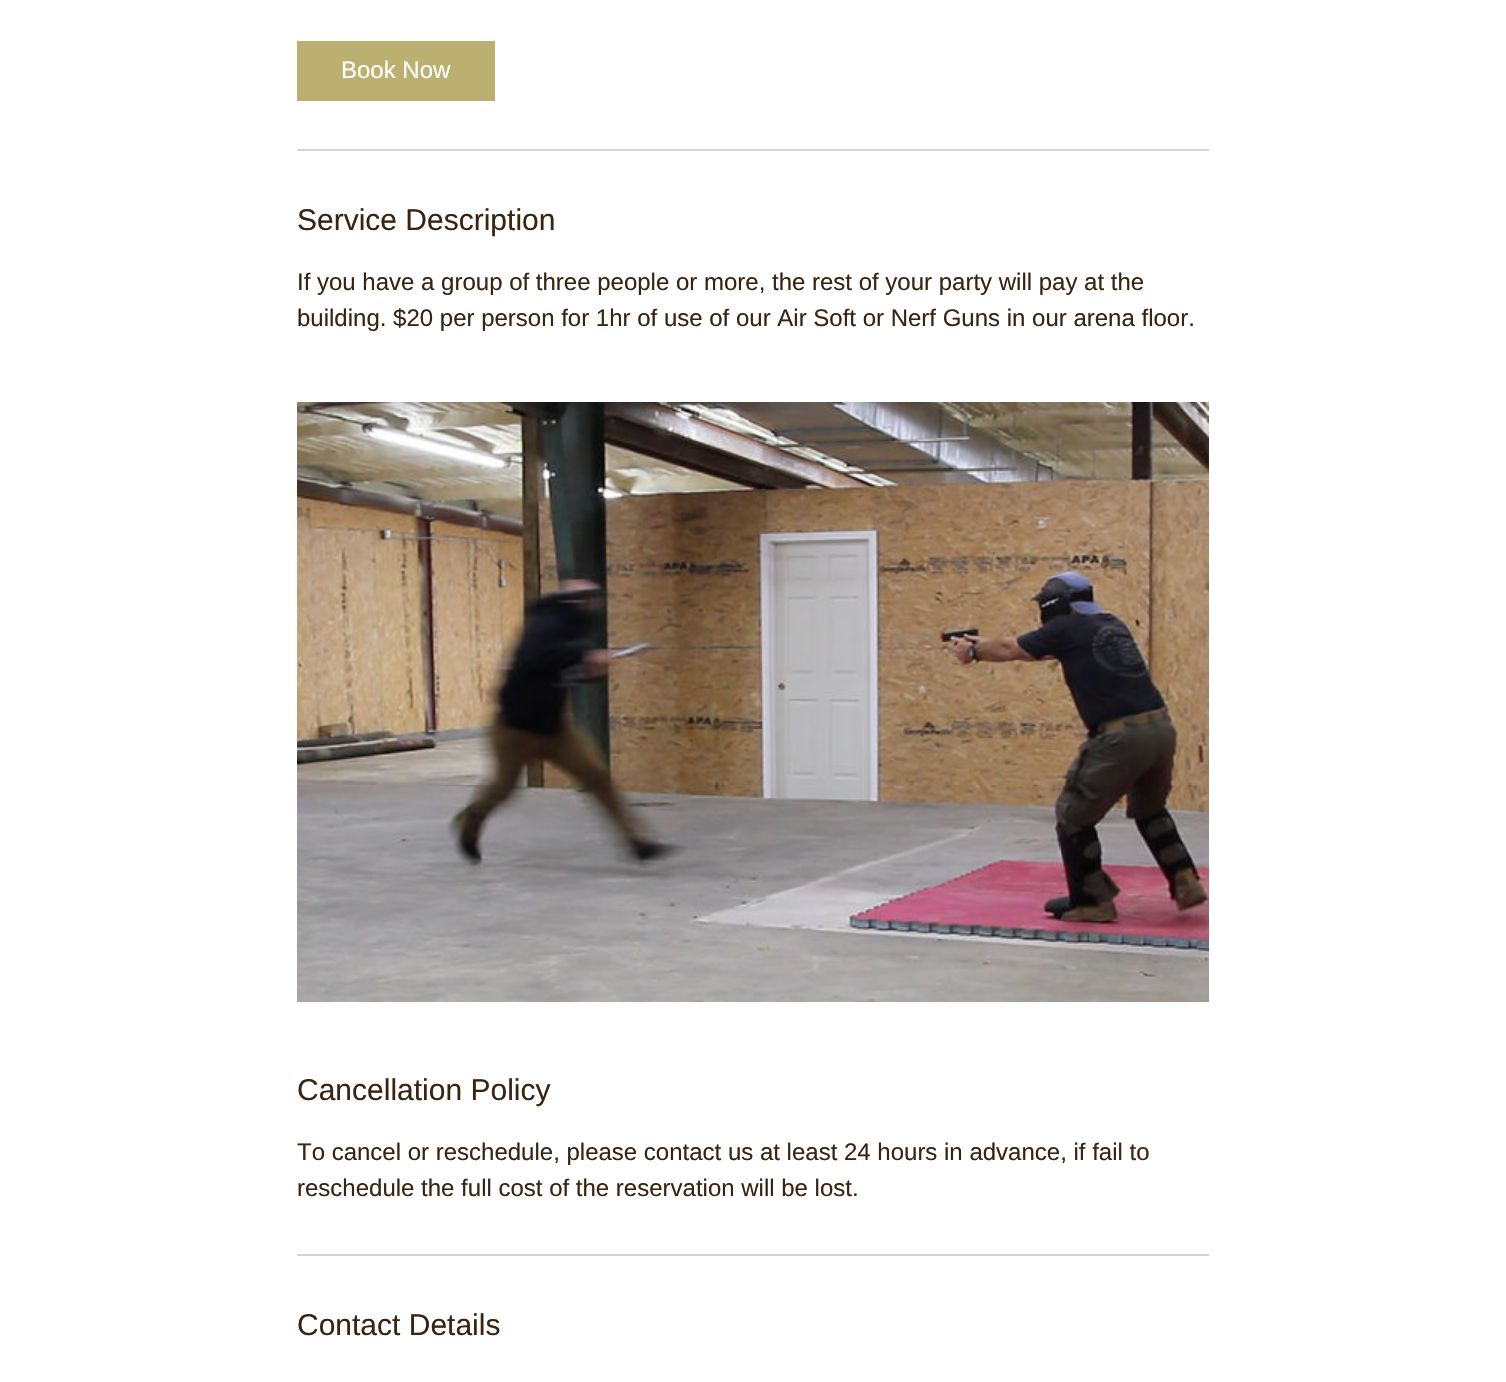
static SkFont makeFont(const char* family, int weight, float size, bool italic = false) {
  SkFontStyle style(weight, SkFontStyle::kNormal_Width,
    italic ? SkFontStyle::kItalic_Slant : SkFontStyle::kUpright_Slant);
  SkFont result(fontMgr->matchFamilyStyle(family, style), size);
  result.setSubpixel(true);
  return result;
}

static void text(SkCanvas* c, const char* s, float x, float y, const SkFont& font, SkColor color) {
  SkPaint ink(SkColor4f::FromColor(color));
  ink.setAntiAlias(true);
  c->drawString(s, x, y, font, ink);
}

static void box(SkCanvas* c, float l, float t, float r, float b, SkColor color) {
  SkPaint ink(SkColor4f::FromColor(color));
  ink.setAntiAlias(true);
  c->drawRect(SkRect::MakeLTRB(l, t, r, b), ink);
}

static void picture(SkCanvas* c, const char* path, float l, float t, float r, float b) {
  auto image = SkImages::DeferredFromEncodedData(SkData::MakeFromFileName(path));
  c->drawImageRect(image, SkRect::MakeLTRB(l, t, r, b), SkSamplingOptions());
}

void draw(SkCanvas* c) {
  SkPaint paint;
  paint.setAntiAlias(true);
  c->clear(0xffffffff);
  box(c, 297, 41, 495, 101, 0xffbbb070);
  SkFont face1 = makeFont("Liberation Sans", 400, 24);
  text(c, "Book Now", 341, 78, face1, 0xffffffff);
  box(c, 297, 149, 1209, 151, 0xffd7d3cf);
  SkFont face2 = makeFont("Liberation Sans", 400, 30);
  text(c, "Service Description", 297, 230, face2, 0xff392411);
  text(c, "If you have a group of three people or more, the rest of your party will pay at the", 297, 290, face1, 0xff392411);
  text(c, "building. $20 per person for 1hr of use of our Air Soft or Nerf Guns in our arena floor.", 297, 326, face1, 0xff392411);
  picture(c, "img_01.png", 297, 402, 1209, 1002);
  text(c, "Cancellation Policy", 297, 1100, face2, 0xff392411);
  text(c, "To cancel or reschedule, please contact us at least 24 hours in advance, if fail to", 297, 1160, face1, 0xff392411);
  text(c, "reschedule the full cost of the reservation will be lost.", 297, 1196, face1, 0xff392411);
  box(c, 297, 1254, 1209, 1256, 0xffd7d3cf);
  text(c, "Contact Details", 297, 1335, face2, 0xff392411);
}
